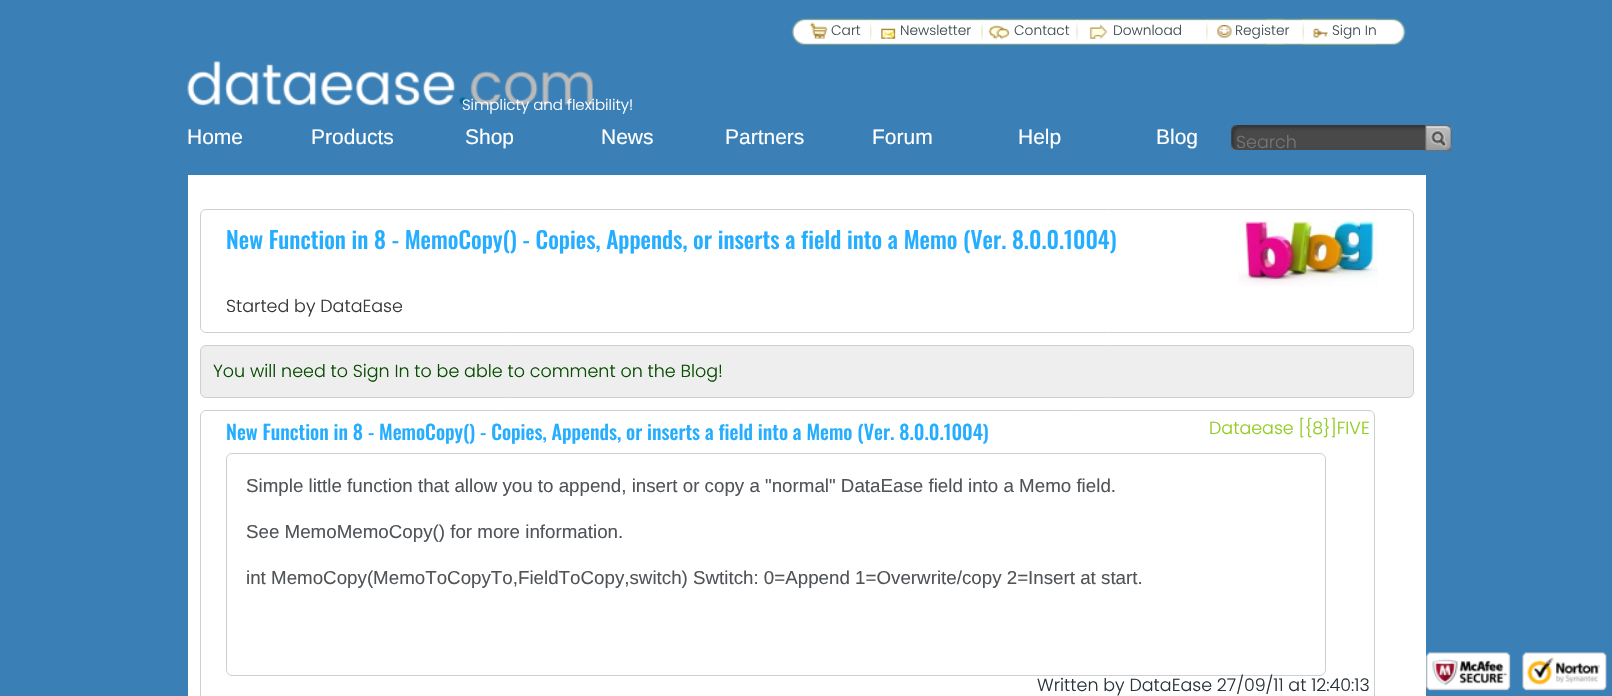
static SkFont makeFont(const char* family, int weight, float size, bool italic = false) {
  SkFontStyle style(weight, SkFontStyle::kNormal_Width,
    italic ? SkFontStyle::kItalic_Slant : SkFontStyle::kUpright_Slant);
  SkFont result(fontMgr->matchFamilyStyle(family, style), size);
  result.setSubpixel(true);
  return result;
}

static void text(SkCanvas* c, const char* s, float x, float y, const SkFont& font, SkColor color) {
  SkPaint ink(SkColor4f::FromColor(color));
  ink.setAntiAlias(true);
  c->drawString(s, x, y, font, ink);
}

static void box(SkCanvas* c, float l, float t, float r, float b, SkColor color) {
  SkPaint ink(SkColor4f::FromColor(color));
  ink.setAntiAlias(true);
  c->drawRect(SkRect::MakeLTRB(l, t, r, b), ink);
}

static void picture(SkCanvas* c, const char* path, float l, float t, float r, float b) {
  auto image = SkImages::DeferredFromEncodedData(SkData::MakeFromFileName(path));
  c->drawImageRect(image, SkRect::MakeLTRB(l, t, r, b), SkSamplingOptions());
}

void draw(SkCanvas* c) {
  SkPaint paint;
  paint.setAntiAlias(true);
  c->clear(0xff3a80b6);
  picture(c, "img_01.png", 791, 18, 1406, 45);
  picture(c, "img_02.png", 809, 22, 828, 39);
  SkFont face1 = makeFont("Poppins", 300, 13.75f);
  text(c, "Cart", 831, 35, face1, 0xff3e4e57);
  picture(c, "img_03.png", 870, 19, 872, 42);
  picture(c, "img_04.png", 881, 28, 896, 39);
  text(c, "Newsletter", 900, 35, face1, 0xff3e4e57);
  picture(c, "img_05.png", 981, 19, 983, 42);
  picture(c, "img_06.png", 988, 25, 1010, 40);
  text(c, "Contact", 1014, 35, face1, 0xff3e4e57);
  picture(c, "img_05.png", 1076, 19, 1078, 42);
  picture(c, "img_07.png", 1089, 24, 1108, 39);
  text(c, "Download", 1113, 35, face1, 0xff3e4e57);
  picture(c, "img_08.png", 1206, 19, 1208, 42);
  picture(c, "img_09.png", 1217, 25, 1232, 38);
  text(c, "Register", 1235, 35, face1, 0xff3e4e57);
  picture(c, "img_10.png", 1302, 19, 1304, 42);
  picture(c, "img_11.png", 1313, 28, 1328, 38);
  text(c, "Sign In", 1332, 35, face1, 0xff3e4e57);
  picture(c, "img_12.png", 187, 61, 593, 106);
  SkFont face2 = makeFont("Poppins", 300, 15);
  text(c, "Simplicty and flexibility!", 462, 110, face2, 0xffffffff);
  SkFont face3 = makeFont("Liberation Sans", 400, 21);
  text(c, "Home", 187, 144, face3, 0xffffffff);
  text(c, "Products", 311, 144, face3, 0xffffffff);
  text(c, "Shop", 465, 144, face3, 0xffffffff);
  text(c, "News", 601, 144, face3, 0xffffffff);
  text(c, "Partners", 725, 144, face3, 0xffffffff);
  text(c, "Forum", 872, 144, face3, 0xffffffff);
  text(c, "Help", 1018, 144, face3, 0xffffffff);
  text(c, "Blog", 1156, 144, face3, 0xffffffff);
  picture(c, "img_13.png", 1231, 125, 1452, 150);
  SkFont face4 = makeFont("Poppins", 300, 17.5f);
  text(c, "Search", 1236, 148, face4, 0xff757575);
  picture(c, "img_14.png", 1425, 125, 1451, 151);
  box(c, 188, 175, 1426, 696, 0xffffffff);
  picture(c, "img_15.png", 1238, 220, 1378, 286);
  paint.setStyle(SkPaint::kStroke_Style);
  paint.setStrokeWidth(1);
  paint.setColor(0xffcfcfcf);
  c->drawRoundRect(SkRect::MakeLTRB(200.5f, 209.5f, 1413.5f, 332.5f), 5.5f, 5.5f, paint);
  SkFont face5 = makeFont("Oswald", 500, 23.35f);
  text(c, "New Function in 8 - MemoCopy() - Copies, Appends, or inserts a field into a Memo (Ver. 8.0.0.1004)", 226, 249, face5, 0xff25aeff);
  text(c, "Started by DataEase", 226, 312, face4, 0xff373737);
  paint.setStyle(SkPaint::kFill_Style);
  paint.setColor(0xffeeeeee);
  c->drawRoundRect(SkRect::MakeLTRB(200.5f, 345.5f, 1413.5f, 397.5f), 5.5f, 5.5f, paint);
  paint.setStyle(SkPaint::kStroke_Style);
  paint.setColor(0xffcfcfcf);
  c->drawRoundRect(SkRect::MakeLTRB(200.5f, 345.5f, 1413.5f, 397.5f), 5.5f, 5.5f, paint);
  text(c, "You will need to Sign In to be able to comment on the Blog!", 213, 377, face4, 0xff074e00);
  c->drawRoundRect(SkRect::MakeLTRB(200.5f, 410.5f, 1374.5f, 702.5f), 5.5f, 5.5f, paint);
  SkFont face6 = makeFont("Oswald", 500, 20);
  text(c, "New Function in 8 - MemoCopy() - Copies, Appends, or inserts a field into a Memo (Ver. 8.0.0.1004)", 226, 440, face6, 0xff25aeff);
  text(c, "Dataease [{8}]FIVE", 1209, 434, face4, 0xff91cc20);
  c->drawRoundRect(SkRect::MakeLTRB(226.5f, 453.5f, 1325.5f, 675.5f), 5.5f, 5.5f, paint);
  SkFont face7 = makeFont("Liberation Sans", 400, 18.75f);
  text(c, "Simple little function that allow you to append, insert or copy a \"normal\" DataEase field into a Memo field.", 246, 492, face7, 0xff505458);
  text(c, "See MemoMemoCopy() for more information.", 246, 538, face7, 0xff505458);
  text(c, "int MemoCopy(MemoToCopyTo,FieldToCopy,switch) Swtitch: 0=Append 1=Overwrite/copy 2=Insert at start.", 246, 584, face7, 0xff505458);
  text(c, "Written by DataEase 27/09/11 at 12:40:13", 1037, 691, face4, 0xff2a3439);
  picture(c, "img_16.png", 1426, 652, 1511, 691);
  picture(c, "img_17.png", 1522, 652, 1607, 691);
}
